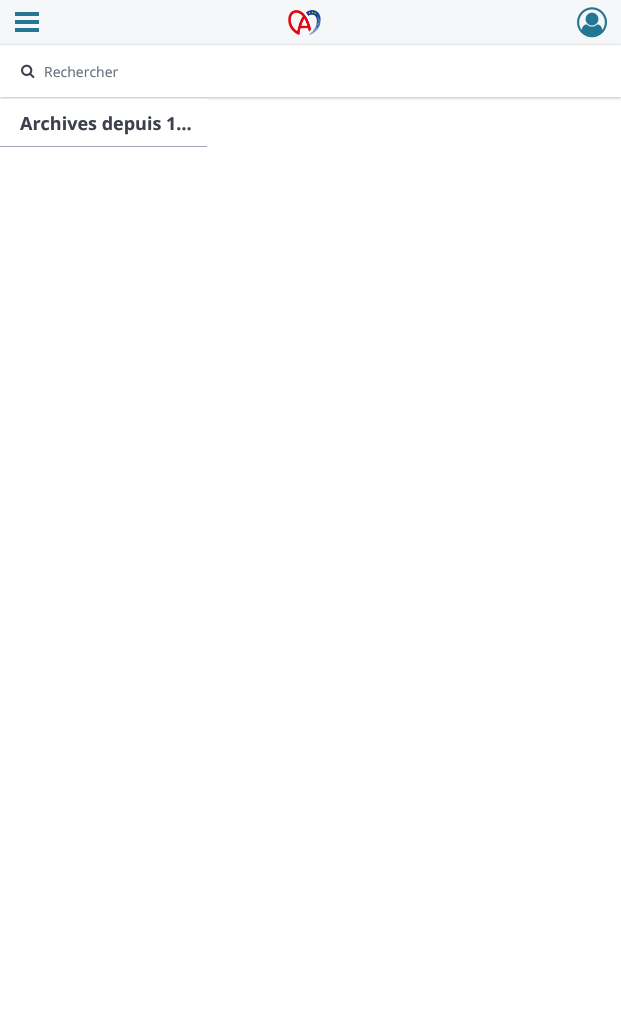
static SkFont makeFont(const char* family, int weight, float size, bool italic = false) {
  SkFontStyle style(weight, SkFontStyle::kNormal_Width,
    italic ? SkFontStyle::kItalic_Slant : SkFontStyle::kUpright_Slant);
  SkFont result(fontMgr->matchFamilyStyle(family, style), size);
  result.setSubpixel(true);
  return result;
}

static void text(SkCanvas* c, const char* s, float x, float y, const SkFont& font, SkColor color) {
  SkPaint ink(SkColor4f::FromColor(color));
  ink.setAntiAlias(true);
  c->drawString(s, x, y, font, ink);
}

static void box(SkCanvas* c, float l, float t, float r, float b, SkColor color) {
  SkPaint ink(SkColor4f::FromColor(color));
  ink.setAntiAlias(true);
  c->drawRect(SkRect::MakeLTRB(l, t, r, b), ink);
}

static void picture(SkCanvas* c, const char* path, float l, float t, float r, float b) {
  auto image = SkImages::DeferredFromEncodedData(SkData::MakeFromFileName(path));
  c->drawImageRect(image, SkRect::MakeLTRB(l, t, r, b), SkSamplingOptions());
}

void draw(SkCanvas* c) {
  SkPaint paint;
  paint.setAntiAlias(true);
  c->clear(0xffffffff);
  box(c, 0, 0, 621, 44, 0xfff6f7f8);
  box(c, 0, 44, 621, 45, 0xffeeeff1);
  box(c, 15, 12, 39, 16, 0xff237792);
  box(c, 15, 20, 39, 24, 0xff237792);
  box(c, 15, 28, 39, 32, 0xff237792);
  picture(c, "img_01.png", 288, 10, 321, 35);
  picture(c, "img_02.png", 577, 7, 607, 38);
  c->save();
  c->clipPath(SkPathBuilder(SkPathFillType::kEvenOdd).moveTo(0, 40).lineTo(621, 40).lineTo(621, 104).lineTo(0, 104).close().moveTo(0, 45).lineTo(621, 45).lineTo(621, 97).lineTo(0, 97).close().detach(), true);
  paint.setColor(0x40000000);
  paint.setMaskFilter(SkMaskFilter::MakeBlur(kNormal_SkBlurStyle, 1.5f));
  c->drawRect(SkRect::MakeLTRB(0, 46, 621, 98), paint);
  paint.setMaskFilter(nullptr);
  c->restore();
  picture(c, "img_03.png", 21, 64, 35, 78);
  SkFont face1 = makeFont("Open Sans", 400, 14);
  text(c, "Rechercher", 44, 77, face1, 0xff656d7c);
  box(c, 0, 99, 207, 101, 0xffffffff);
  box(c, 0, 146, 207, 147, 0xffa2a8b4);
  SkFont face2 = makeFont("Open Sans", 700, 18);
  text(c, "Archives depuis 1…", 20, 130, face2, 0xff3c414b);
}
